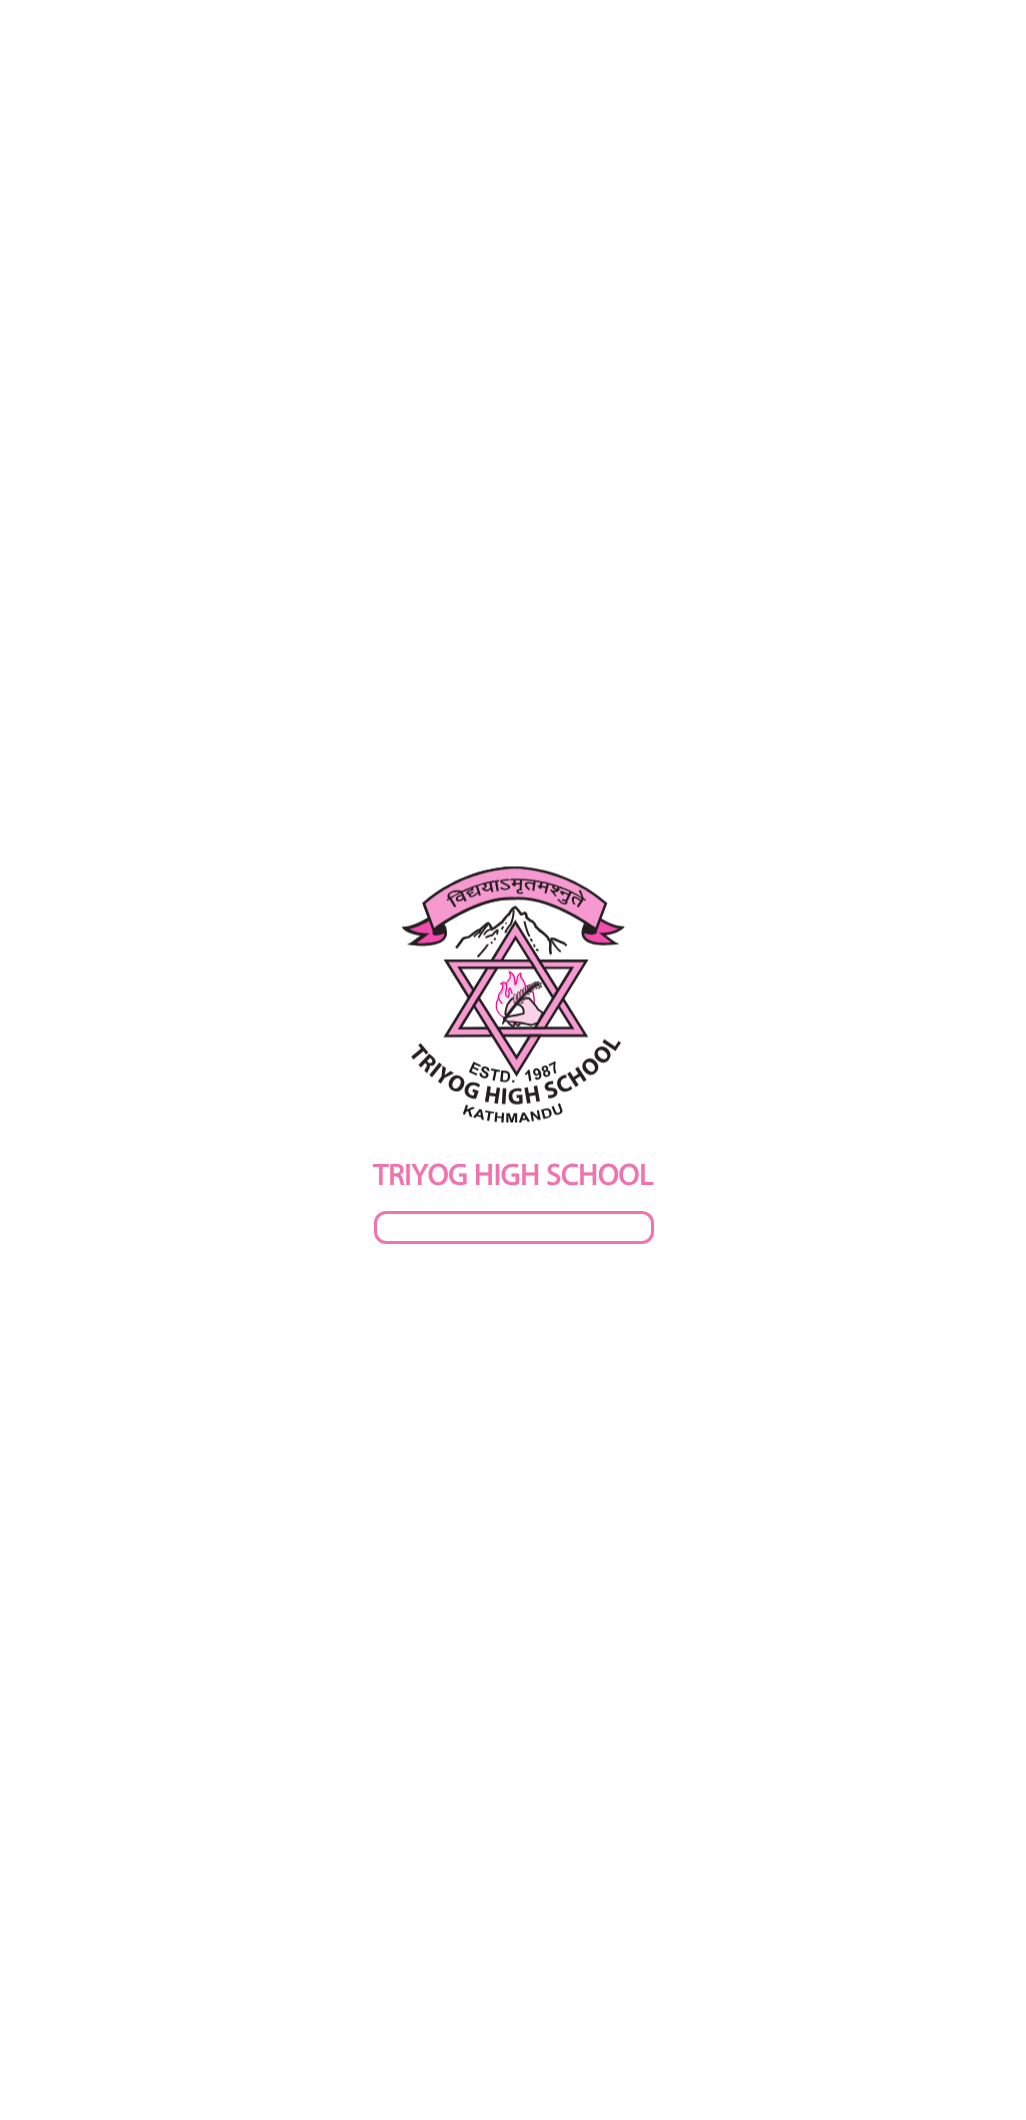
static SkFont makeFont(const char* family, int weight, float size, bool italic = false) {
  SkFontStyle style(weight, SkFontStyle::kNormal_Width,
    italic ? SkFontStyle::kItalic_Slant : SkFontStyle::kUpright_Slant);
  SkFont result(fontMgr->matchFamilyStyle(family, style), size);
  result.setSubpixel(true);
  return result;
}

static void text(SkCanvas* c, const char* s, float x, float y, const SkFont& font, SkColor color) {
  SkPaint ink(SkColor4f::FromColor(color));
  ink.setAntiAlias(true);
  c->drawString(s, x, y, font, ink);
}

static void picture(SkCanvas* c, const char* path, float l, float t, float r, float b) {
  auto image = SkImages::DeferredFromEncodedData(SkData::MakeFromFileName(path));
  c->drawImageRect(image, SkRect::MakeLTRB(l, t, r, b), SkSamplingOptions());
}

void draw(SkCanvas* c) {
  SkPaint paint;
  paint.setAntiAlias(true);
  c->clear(0xffffffff);
  picture(c, "img_01.png", 401, 866, 625, 1123);
  SkFont face1 = makeFont("Myriad", 700, 30);
  text(c, "TRIYOG HIGH SCHOOL", 373, 1185, face1, 0xfff272ad);
  paint.setStyle(SkPaint::kStroke_Style);
  paint.setStrokeWidth(3);
  paint.setColor(0xfff272ad);
  c->drawRoundRect(SkRect::MakeLTRB(375.5f, 1212.5f, 652.5f, 1242.5f), 10.5f, 10.5f, paint);
}
